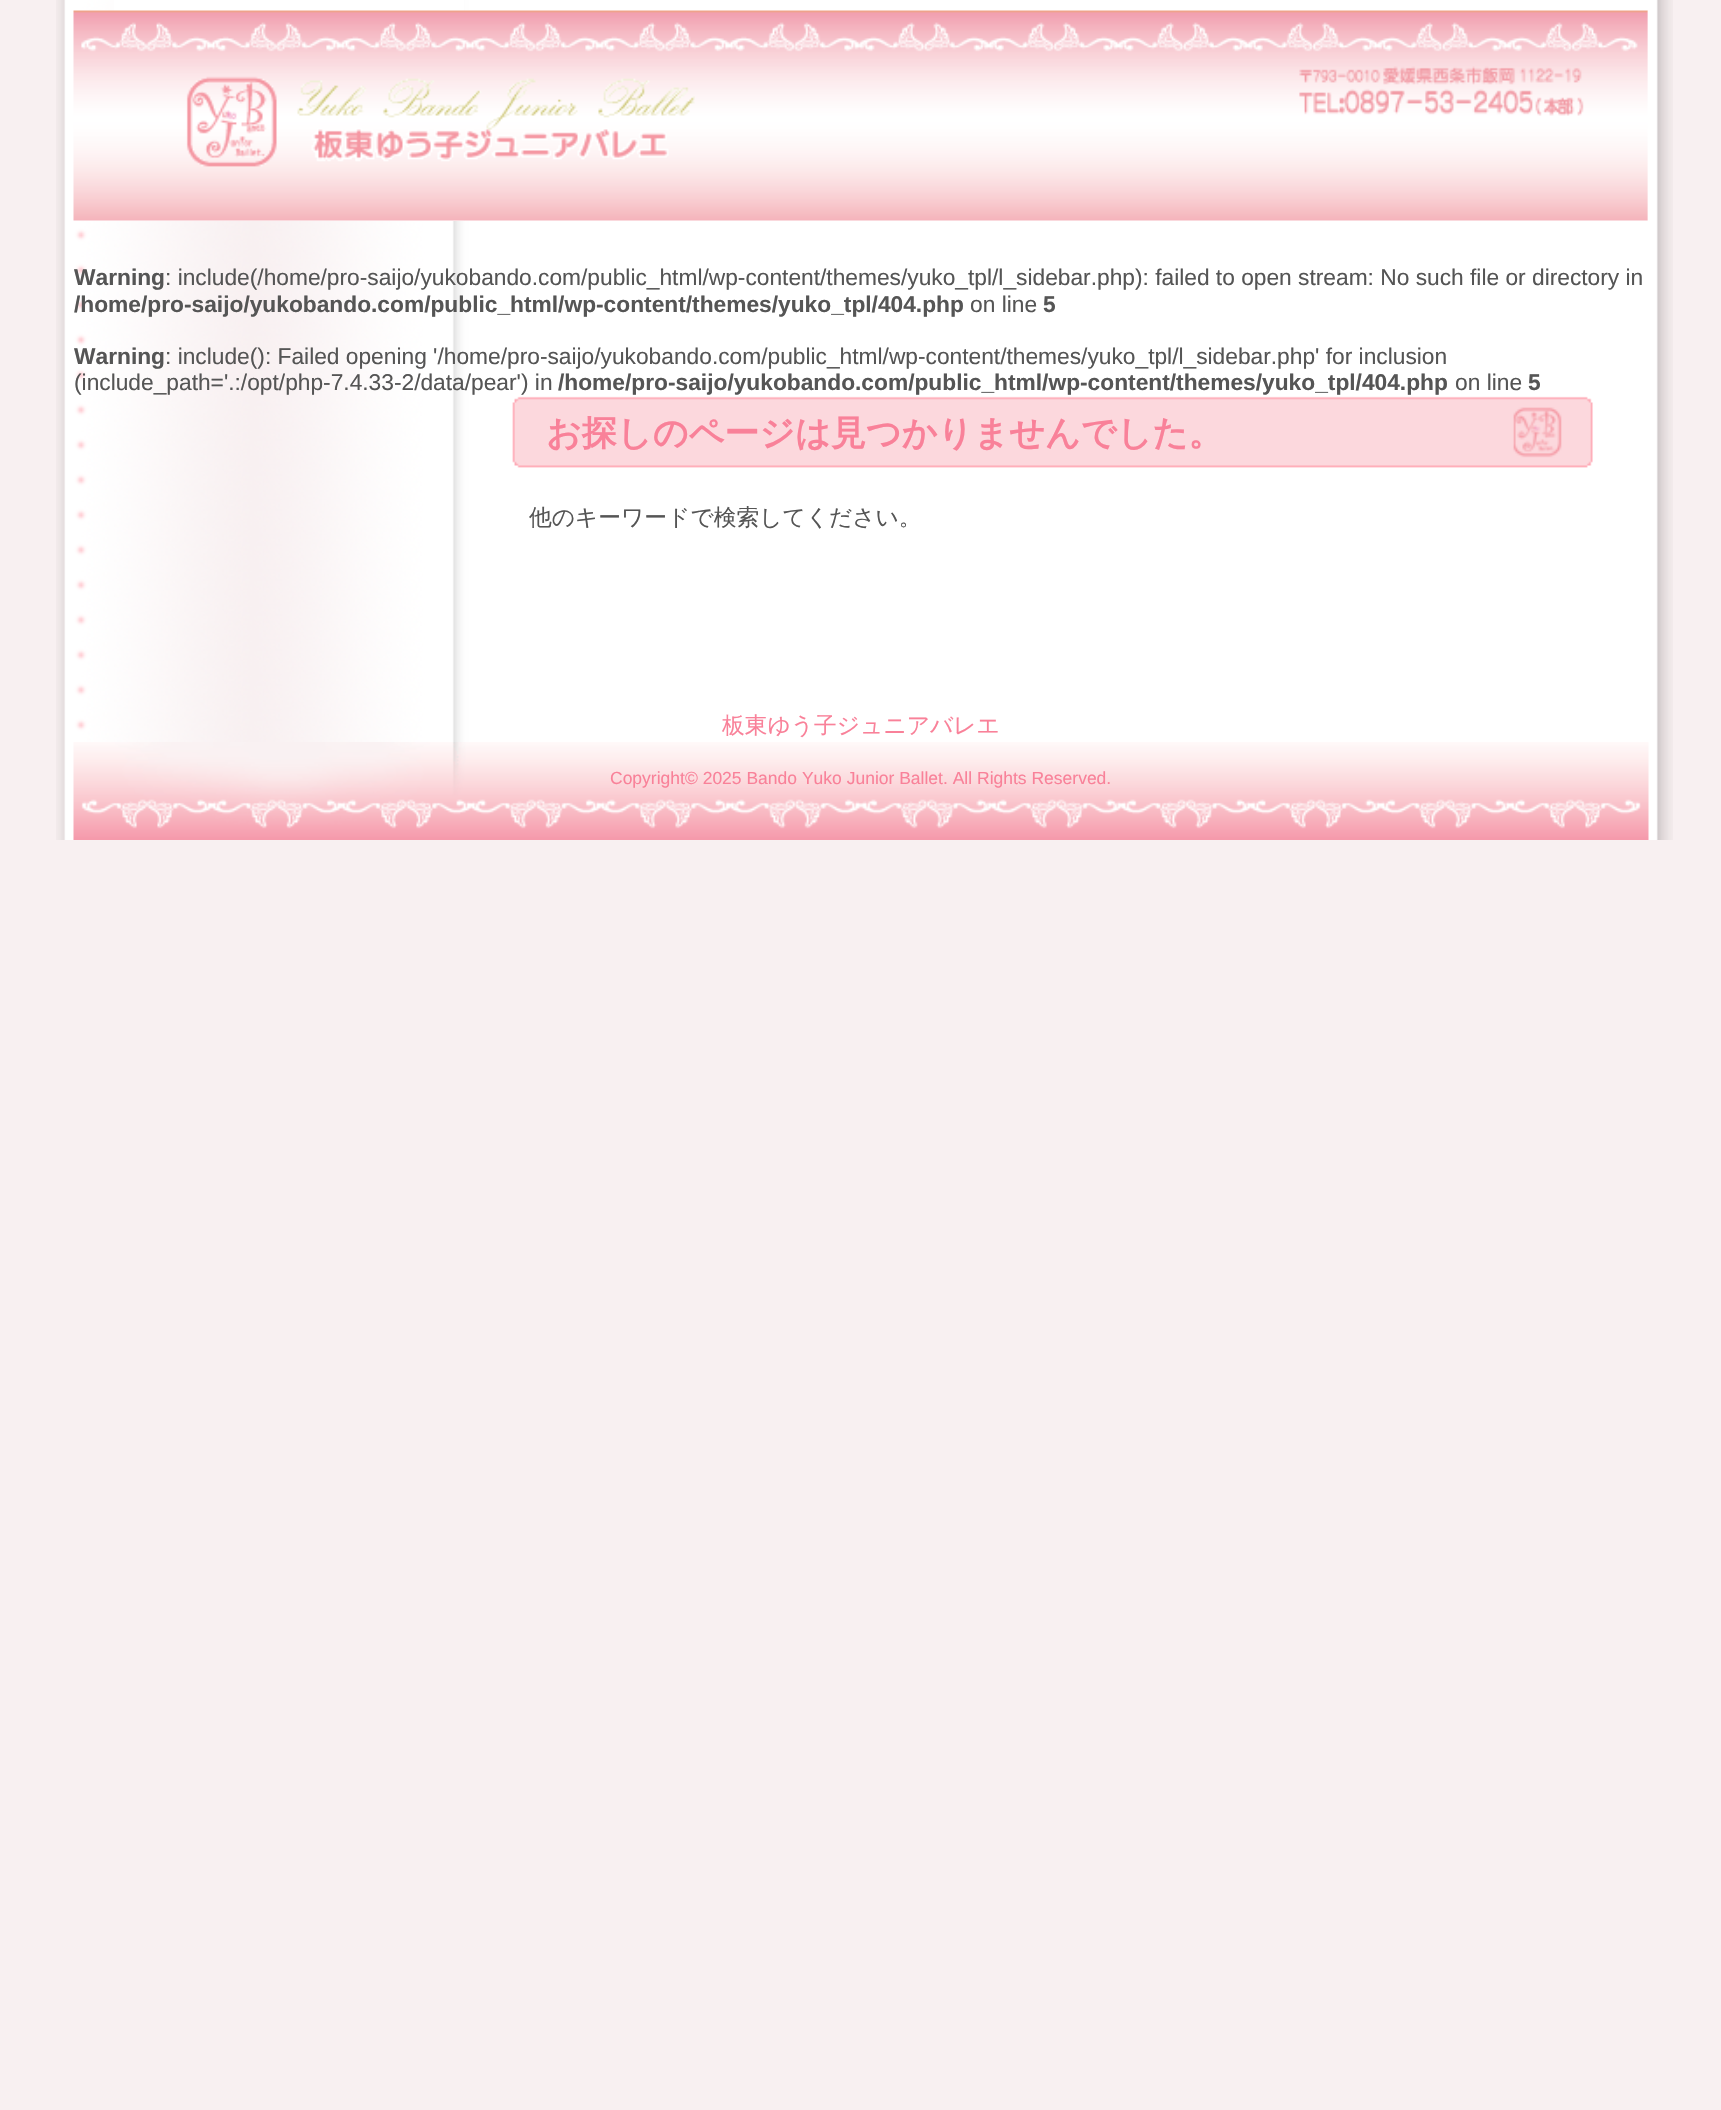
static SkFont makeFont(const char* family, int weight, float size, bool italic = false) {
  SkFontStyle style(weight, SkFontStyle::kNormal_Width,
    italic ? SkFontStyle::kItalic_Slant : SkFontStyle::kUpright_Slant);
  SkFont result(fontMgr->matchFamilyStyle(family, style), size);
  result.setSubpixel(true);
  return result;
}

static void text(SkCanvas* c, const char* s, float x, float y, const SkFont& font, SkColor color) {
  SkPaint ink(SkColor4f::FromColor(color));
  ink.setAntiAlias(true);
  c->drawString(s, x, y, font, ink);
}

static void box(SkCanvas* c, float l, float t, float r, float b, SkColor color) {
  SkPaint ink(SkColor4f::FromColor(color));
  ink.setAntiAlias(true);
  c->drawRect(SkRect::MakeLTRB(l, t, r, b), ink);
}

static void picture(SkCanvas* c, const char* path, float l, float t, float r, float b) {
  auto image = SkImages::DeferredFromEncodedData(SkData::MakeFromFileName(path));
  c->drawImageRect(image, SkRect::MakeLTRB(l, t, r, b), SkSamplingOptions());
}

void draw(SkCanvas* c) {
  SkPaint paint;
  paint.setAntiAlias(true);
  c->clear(0xfff8f0f1);
  picture(c, "img_01.png", 56, 0, 1673, 840);
  box(c, 114, 0, 464, 11, 0xffffffff);
  box(c, 75, 11, 464, 221, 0xffffffff);
  picture(c, "img_02.png", 73, 10, 1648, 221);
  picture(c, "img_03.png", 186, 76, 695, 167);
  SkFont face1 = makeFont("Liberation Sans", 700, 22.75f);
  text(c, "Warning", 74, 285, face1, 0xff555555);
  SkFont face2 = makeFont("Liberation Sans", 400, 22.75f);
  text(c, ": include(/home/pro-saijo/yukobando.com/public_html/wp-content/themes/yuko_tpl/l_sidebar.php): failed to open stream: No such file or directory in", 165, 285, face2, 0xff555555);
  text(c, "/home/pro-saijo/yukobando.com/public_html/wp-content/themes/yuko_tpl/404.php", 74, 312, face1, 0xff555555);
  text(c, "on line", 970, 312, face2, 0xff555555);
  text(c, "5", 1043, 312, face1, 0xff555555);
  text(c, "Warning", 74, 364, face1, 0xff555555);
  text(c, ": include(): Failed opening '/home/pro-saijo/yukobando.com/public_html/wp-content/themes/yuko_tpl/l_sidebar.php' for inclusion", 165, 364, face2, 0xff555555);
  text(c, "(include_path='.:/opt/php-7.4.33-2/data/pear') in", 74, 390, face2, 0xff555555);
  text(c, "/home/pro-saijo/yukobando.com/public_html/wp-content/themes/yuko_tpl/404.php", 558, 390, face1, 0xff555555);
  text(c, "on line", 1455, 390, face2, 0xff555555);
  text(c, "5", 1528, 390, face1, 0xff555555);
  picture(c, "img_04.png", 512, 396, 1593, 468);
  SkFont face3 = makeFont("WenQuanYi Zen Hei", 700, 35);
  text(c, "お探しのページは見つかりませんでした。", 546, 445, face3, 0xfff98199);
  SkFont face4 = makeFont("WenQuanYi Zen Hei", 500, 22.75f);
  text(c, "他のキーワードで検索してください。", 529, 525, face4, 0xff555555);
  text(c, "板東ゆう子ジュニアバレエ", 722, 733, face4, 0xfff98199);
  picture(c, "img_05.png", 73, 742, 1649, 840);
  SkFont face5 = makeFont("Liberation Sans", 400, 17.5f);
  text(c, "Copyright© 2025 Bando Yuko Junior Ballet. All Rights Reserved.", 610, 784, face5, 0xfff98199);
}
